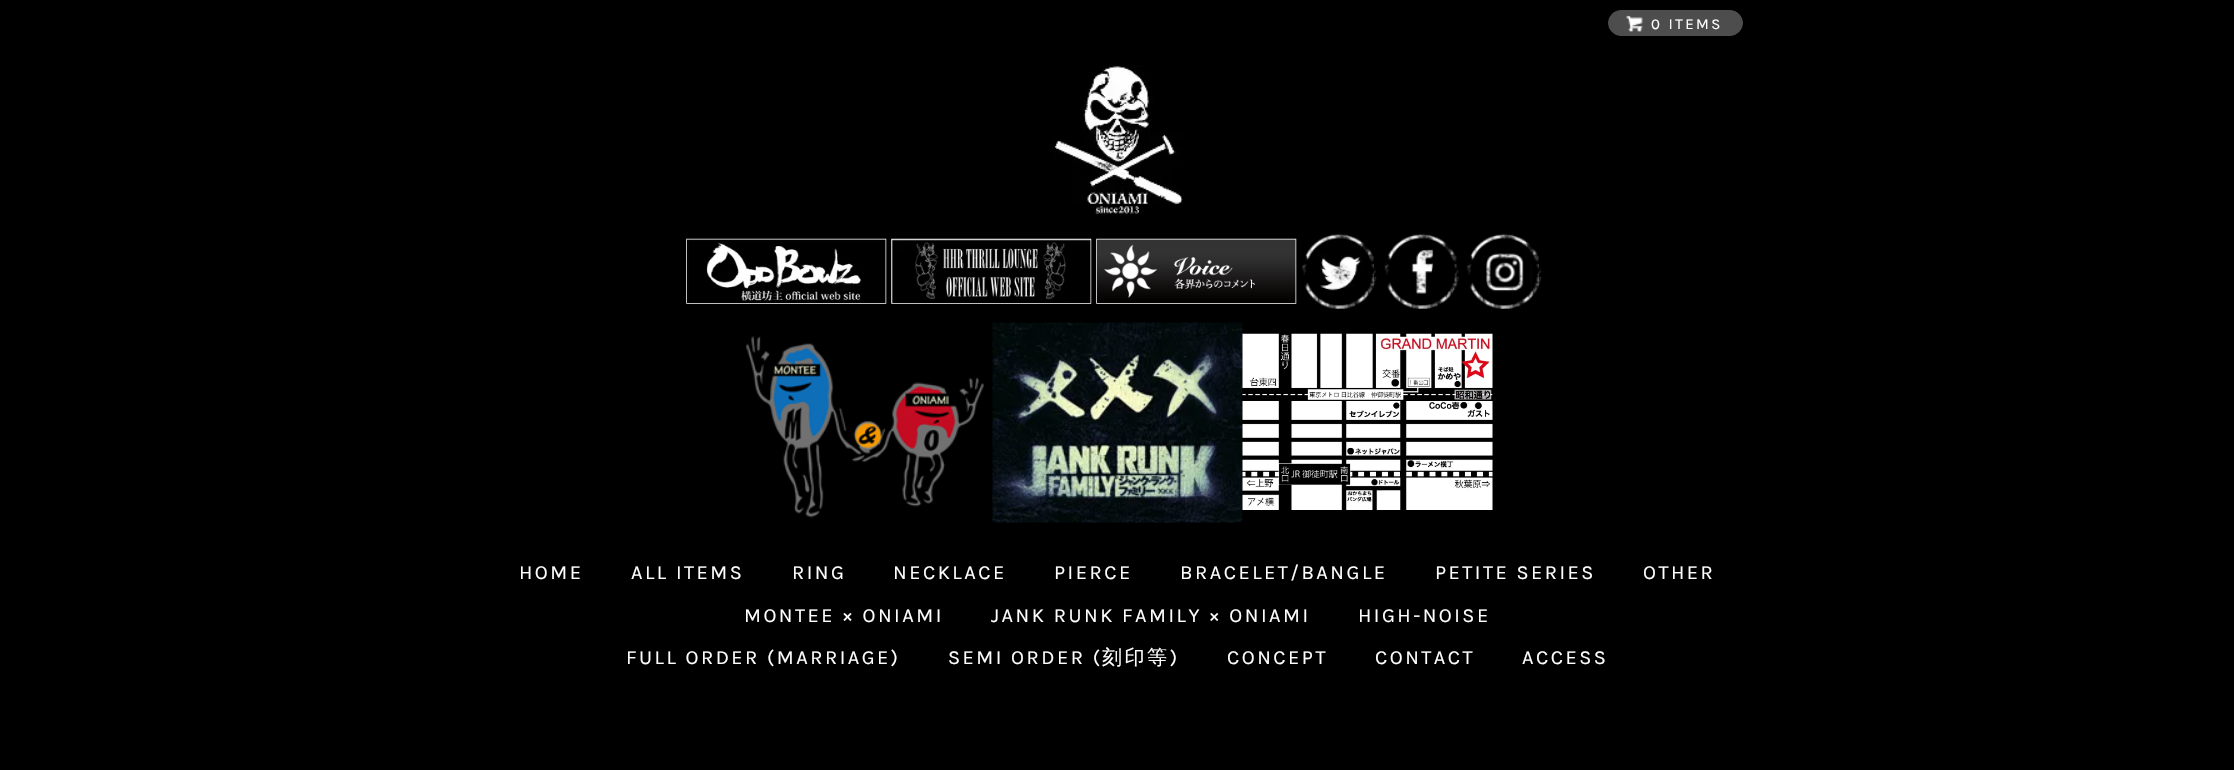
static SkFont makeFont(const char* family, int weight, float size, bool italic = false) {
  SkFontStyle style(weight, SkFontStyle::kNormal_Width,
    italic ? SkFontStyle::kItalic_Slant : SkFontStyle::kUpright_Slant);
  SkFont result(fontMgr->matchFamilyStyle(family, style), size);
  result.setSubpixel(true);
  return result;
}

static void spacedText(SkCanvas* c, const char* s, float x, float y, const SkFont& font, const SkPaint& ink, float letter, float word) {
  std::vector<SkGlyphID> glyphs(font.countText(s, strlen(s), SkTextEncoding::kUTF8));
  std::vector<float> xs(glyphs.size());
  font.textToGlyphs(s, strlen(s), SkTextEncoding::kUTF8, glyphs);
  font.getXPos(glyphs, xs, x);
  float extra = 0;
  for (size_t i = 0; i < glyphs.size(); i++) {
    xs[i] += extra;
    extra += letter + word * (glyphs[i] == font.unicharToGlyph(' '));
  }
  c->drawTextBlob(SkTextBlob::MakeFromPosHGlyphs(glyphs, xs, y, font), 0, 0, ink);
}

static void picture(SkCanvas* c, const char* path, float l, float t, float r, float b) {
  auto image = SkImages::DeferredFromEncodedData(SkData::MakeFromFileName(path));
  c->drawImageRect(image, SkRect::MakeLTRB(l, t, r, b), SkSamplingOptions());
}

void draw(SkCanvas* c) {
  SkPaint paint;
  paint.setAntiAlias(true);
  c->clear(0xff000000);
  paint.setColor(0xff4d4d4d);
  c->drawRoundRect(SkRect::MakeLTRB(1608.5f, 10.5f, 1742.5f, 35.5f), 12.5f, 12.5f, paint);
  paint.setStyle(SkPaint::kStroke_Style);
  paint.setStrokeWidth(1);
  c->drawRoundRect(SkRect::MakeLTRB(1608.5f, 10.5f, 1742.5f, 35.5f), 12.5f, 12.5f, paint);
  picture(c, "img_01.png", 1626, 15, 1643, 32);
  SkFont face1 = makeFont("Karla", 400, 15);
  paint.setStyle(SkPaint::kFill_Style);
  paint.setColor(0xffffffff);
  spacedText(c, "0 ITEMS", 1651, 29, face1, paint, 2.5f, 0);
  picture(c, "img_02.png", 1054, 65, 1183, 215);
  picture(c, "img_03.png", 686, 238, 887, 304);
  picture(c, "img_04.png", 891, 238, 1092, 304);
  picture(c, "img_05.png", 1096, 238, 1297, 304);
  picture(c, "img_06.png", 1302, 233, 1377, 309);
  picture(c, "img_07.png", 1384, 233, 1459, 309);
  picture(c, "img_08.png", 1467, 233, 1542, 309);
  picture(c, "img_09.png", 746, 336, 984, 518);
  picture(c, "img_10.png", 992, 322, 1243, 523);
  picture(c, "img_11.png", 1242, 333, 1493, 510);
  SkFont face2 = makeFont("Karla", 400, 20);
  spacedText(c, "HOME", 519, 579, face2, paint, 2.5f, 0);
  spacedText(c, "ALL ITEMS", 631, 579, face2, paint, 2.5f, 0);
  spacedText(c, "RING", 792, 579, face2, paint, 2.5f, 0);
  spacedText(c, "NECKLACE", 893, 579, face2, paint, 2.5f, 0);
  spacedText(c, "PIERCE", 1054, 579, face2, paint, 2.5f, 0);
  spacedText(c, "BRACELET/BANGLE", 1180, 579, face2, paint, 2.5f, 0);
  spacedText(c, "PETITE SERIES", 1435, 579, face2, paint, 2.5f, 0);
  spacedText(c, "OTHER", 1643, 579, face2, paint, 2.5f, 0);
  spacedText(c, "MONTEE × ONIAMI", 744, 622, face2, paint, 2.5f, 0);
  spacedText(c, "JANK RUNK FAMILY × ONIAMI", 991, 622, face2, paint, 2.5f, 0);
  spacedText(c, "HIGH-NOISE", 1358, 622, face2, paint, 2.5f, 0);
  spacedText(c, "FULL ORDER (MARRIAGE)", 626, 664, face2, paint, 2.5f, 0);
  spacedText(c, "SEMI ORDER (", 948, 664, face2, paint, 2.5f, 0);
  SkFont face3 = makeFont("WenQuanYi Zen Hei", 500, 20);
  spacedText(c, "刻印等", 1102, 664, face3, paint, 2.5f, 0);
  spacedText(c, ")", 1170, 664, face2, paint, 2.5f, 0);
  spacedText(c, "CONCEPT", 1227, 664, face2, paint, 2.5f, 0);
  spacedText(c, "CONTACT", 1375, 664, face2, paint, 2.5f, 0);
  spacedText(c, "ACCESS", 1522, 664, face2, paint, 2.5f, 0);
}
